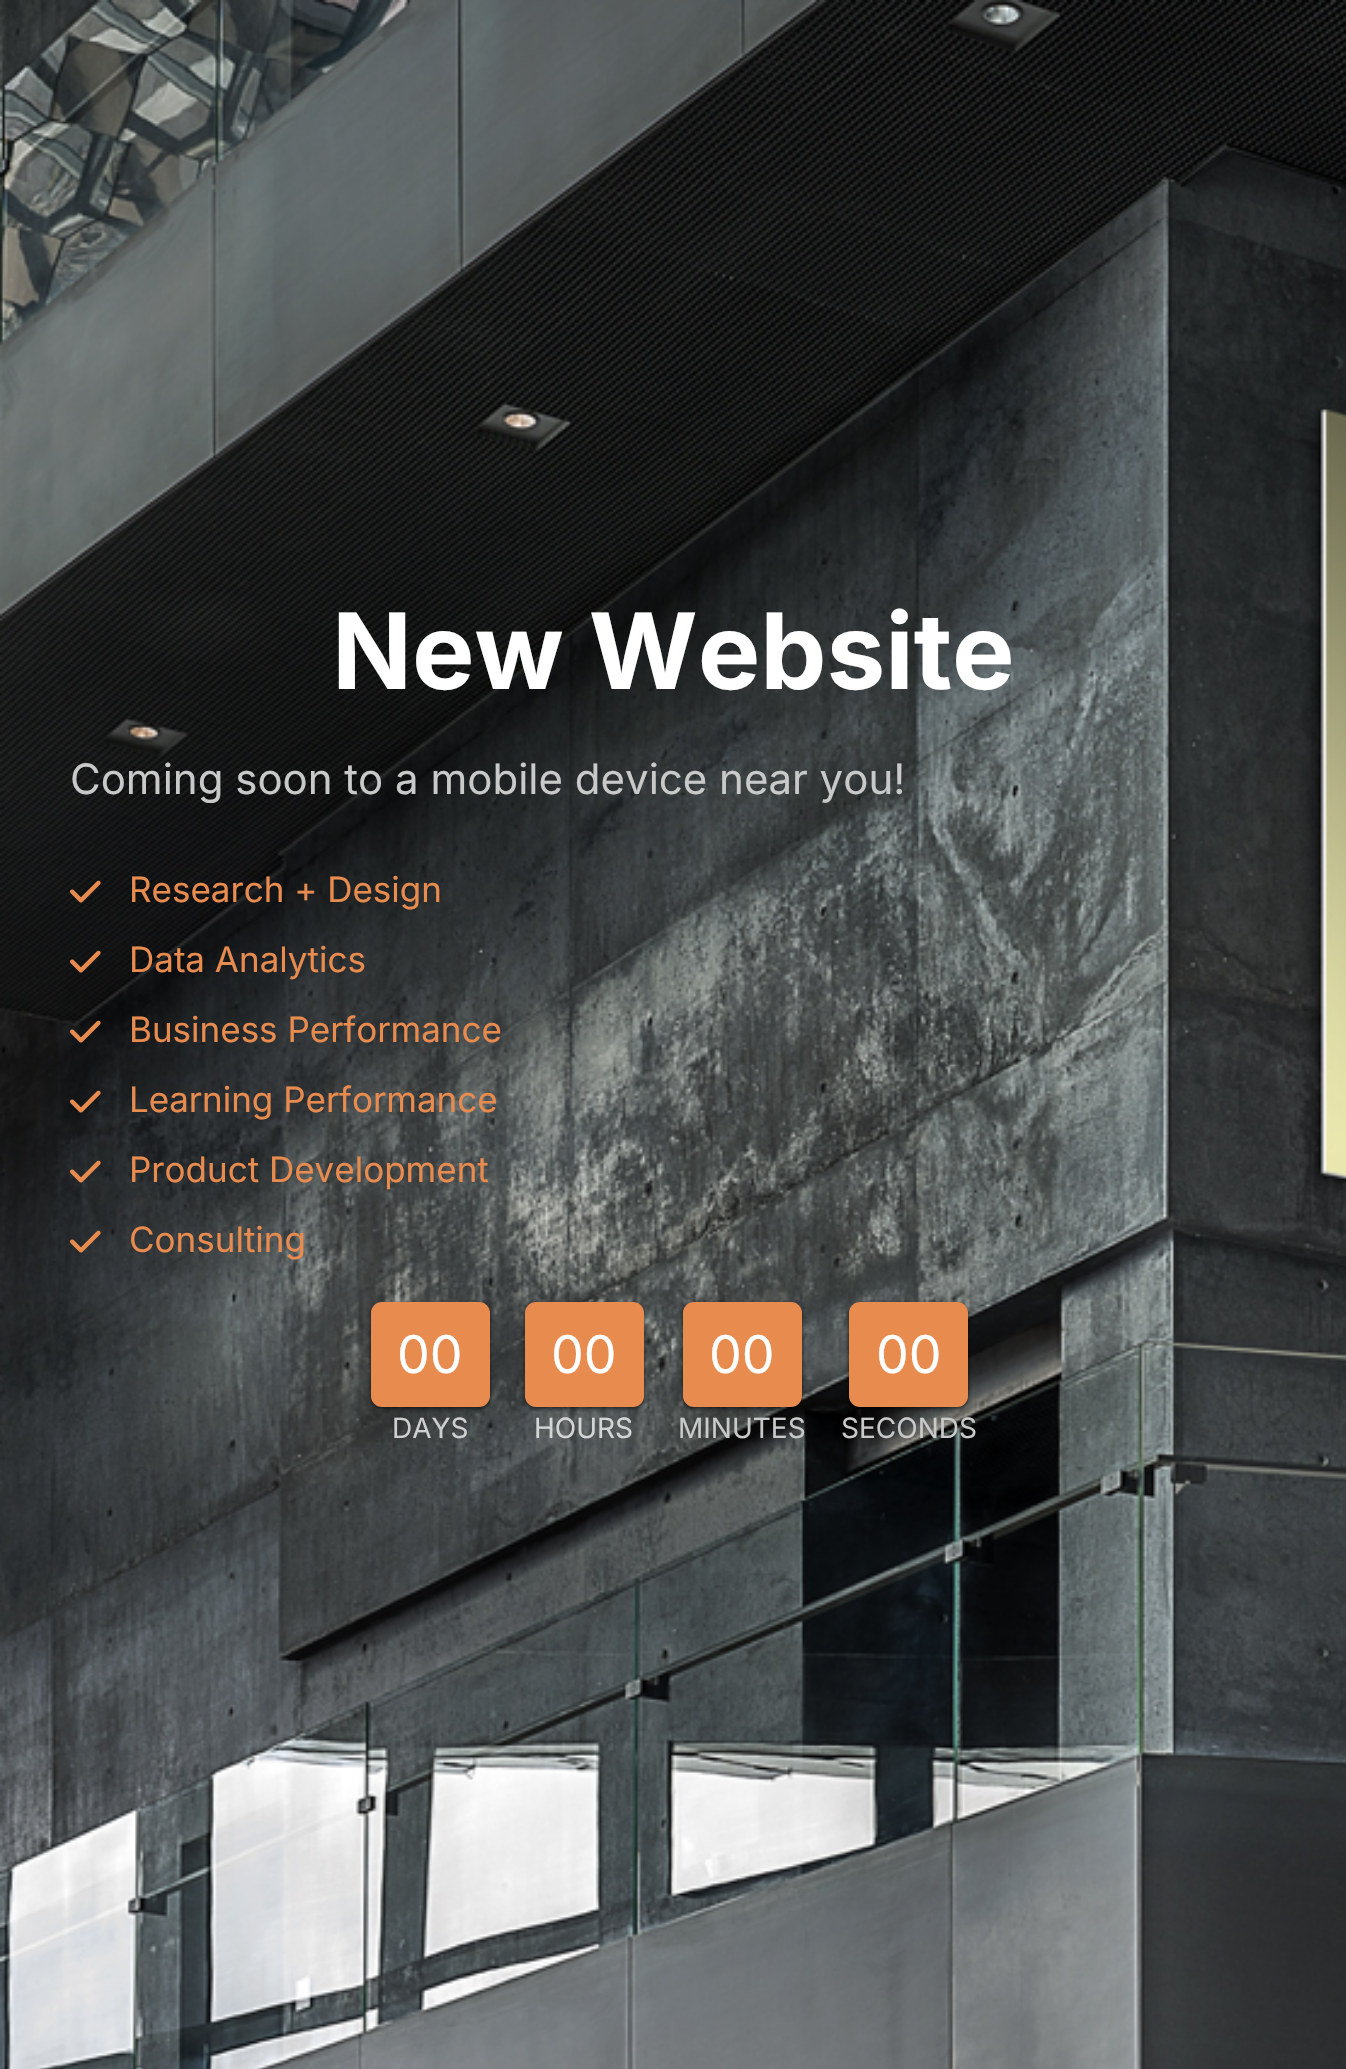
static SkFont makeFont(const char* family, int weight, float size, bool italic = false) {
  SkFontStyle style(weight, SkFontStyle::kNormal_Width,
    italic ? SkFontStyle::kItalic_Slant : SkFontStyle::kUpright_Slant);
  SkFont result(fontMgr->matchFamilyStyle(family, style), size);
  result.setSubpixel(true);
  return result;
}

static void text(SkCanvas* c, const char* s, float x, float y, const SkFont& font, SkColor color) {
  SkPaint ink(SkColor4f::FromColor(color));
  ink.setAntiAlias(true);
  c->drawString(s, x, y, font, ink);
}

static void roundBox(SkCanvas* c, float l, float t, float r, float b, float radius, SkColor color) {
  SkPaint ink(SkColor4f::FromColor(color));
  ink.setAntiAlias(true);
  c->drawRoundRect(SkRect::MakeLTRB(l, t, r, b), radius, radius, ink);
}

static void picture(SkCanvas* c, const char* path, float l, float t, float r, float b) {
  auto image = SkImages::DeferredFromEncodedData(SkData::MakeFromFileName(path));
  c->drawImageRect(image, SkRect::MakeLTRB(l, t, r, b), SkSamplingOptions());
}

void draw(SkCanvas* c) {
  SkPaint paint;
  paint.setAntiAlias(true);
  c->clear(0xffffffff);
  picture(c, "img_01.png", 0, 0, 1346, 2069);
  SkFont face1 = makeFont("Inter", 700, 105);
  text(c, "New Website", 332, 689, face1, 0xffffffff);
  SkFont face2 = makeFont("Inter", 400, 42);
  text(c, "Coming soon to a mobile device near you!", 70, 794, face2, 0xffc8c9c9);
  picture(c, "img_02.png", 70, 880, 101, 903);
  SkFont face3 = makeFont("Inter", 400, 35);
  text(c, "Research + Design", 129, 902, face3, 0xffe78b4f);
  picture(c, "img_03.png", 70, 950, 101, 973);
  text(c, "Data Analytics", 129, 972, face3, 0xffe78b4f);
  picture(c, "img_04.png", 70, 1020, 101, 1043);
  text(c, "Business Performance", 129, 1042, face3, 0xffe78b4f);
  picture(c, "img_05.png", 70, 1090, 101, 1113);
  text(c, "Learning Performance", 129, 1112, face3, 0xffe78b4f);
  picture(c, "img_06.png", 70, 1160, 101, 1183);
  text(c, "Product Development", 129, 1182, face3, 0xffe78b4f);
  picture(c, "img_07.png", 70, 1230, 101, 1253);
  text(c, "Consulting", 129, 1252, face3, 0xffe78b4f);
  paint.setColor(0x99000000);
  paint.setMaskFilter(SkMaskFilter::MakeBlur(kNormal_SkBlurStyle, 2));
  c->drawRoundRect(SkRect::MakeLTRB(371, 1304, 490, 1409), 11, 11, paint);
  paint.setMaskFilter(nullptr);
  roundBox(c, 371, 1302, 490, 1407, 11, 0xffe78b4f);
  SkFont face4 = makeFont("Inter", 400, 52);
  text(c, "00", 397, 1373, face4, 0xffffffff);
  SkFont face5 = makeFont("Inter", 400, 28);
  text(c, "DAYS", 392, 1438, face5, 0xffcecfd0);
  paint.setMaskFilter(SkMaskFilter::MakeBlur(kNormal_SkBlurStyle, 2));
  c->drawRoundRect(SkRect::MakeLTRB(525, 1304, 644, 1409), 11, 11, paint);
  paint.setMaskFilter(nullptr);
  roundBox(c, 525, 1302, 644, 1407, 11, 0xffe78b4f);
  text(c, "00", 551, 1373, face4, 0xffffffff);
  text(c, "HOURS", 534, 1438, face5, 0xffd4d6d6);
  paint.setMaskFilter(SkMaskFilter::MakeBlur(kNormal_SkBlurStyle, 2));
  c->drawRoundRect(SkRect::MakeLTRB(683, 1304, 802, 1409), 11, 11, paint);
  paint.setMaskFilter(nullptr);
  roundBox(c, 683, 1302, 802, 1407, 11, 0xffe78b4f);
  text(c, "00", 709, 1373, face4, 0xffffffff);
  text(c, "MINUTES", 678, 1438, face5, 0xffc8c9c9);
  paint.setMaskFilter(SkMaskFilter::MakeBlur(kNormal_SkBlurStyle, 2));
  c->drawRoundRect(SkRect::MakeLTRB(849, 1304, 968, 1409), 11, 11, paint);
  paint.setMaskFilter(nullptr);
  roundBox(c, 849, 1302, 968, 1407, 11, 0xffe78b4f);
  text(c, "00", 876, 1373, face4, 0xffffffff);
  text(c, "SECONDS", 841, 1438, face5, 0xffc8c9c9);
}
